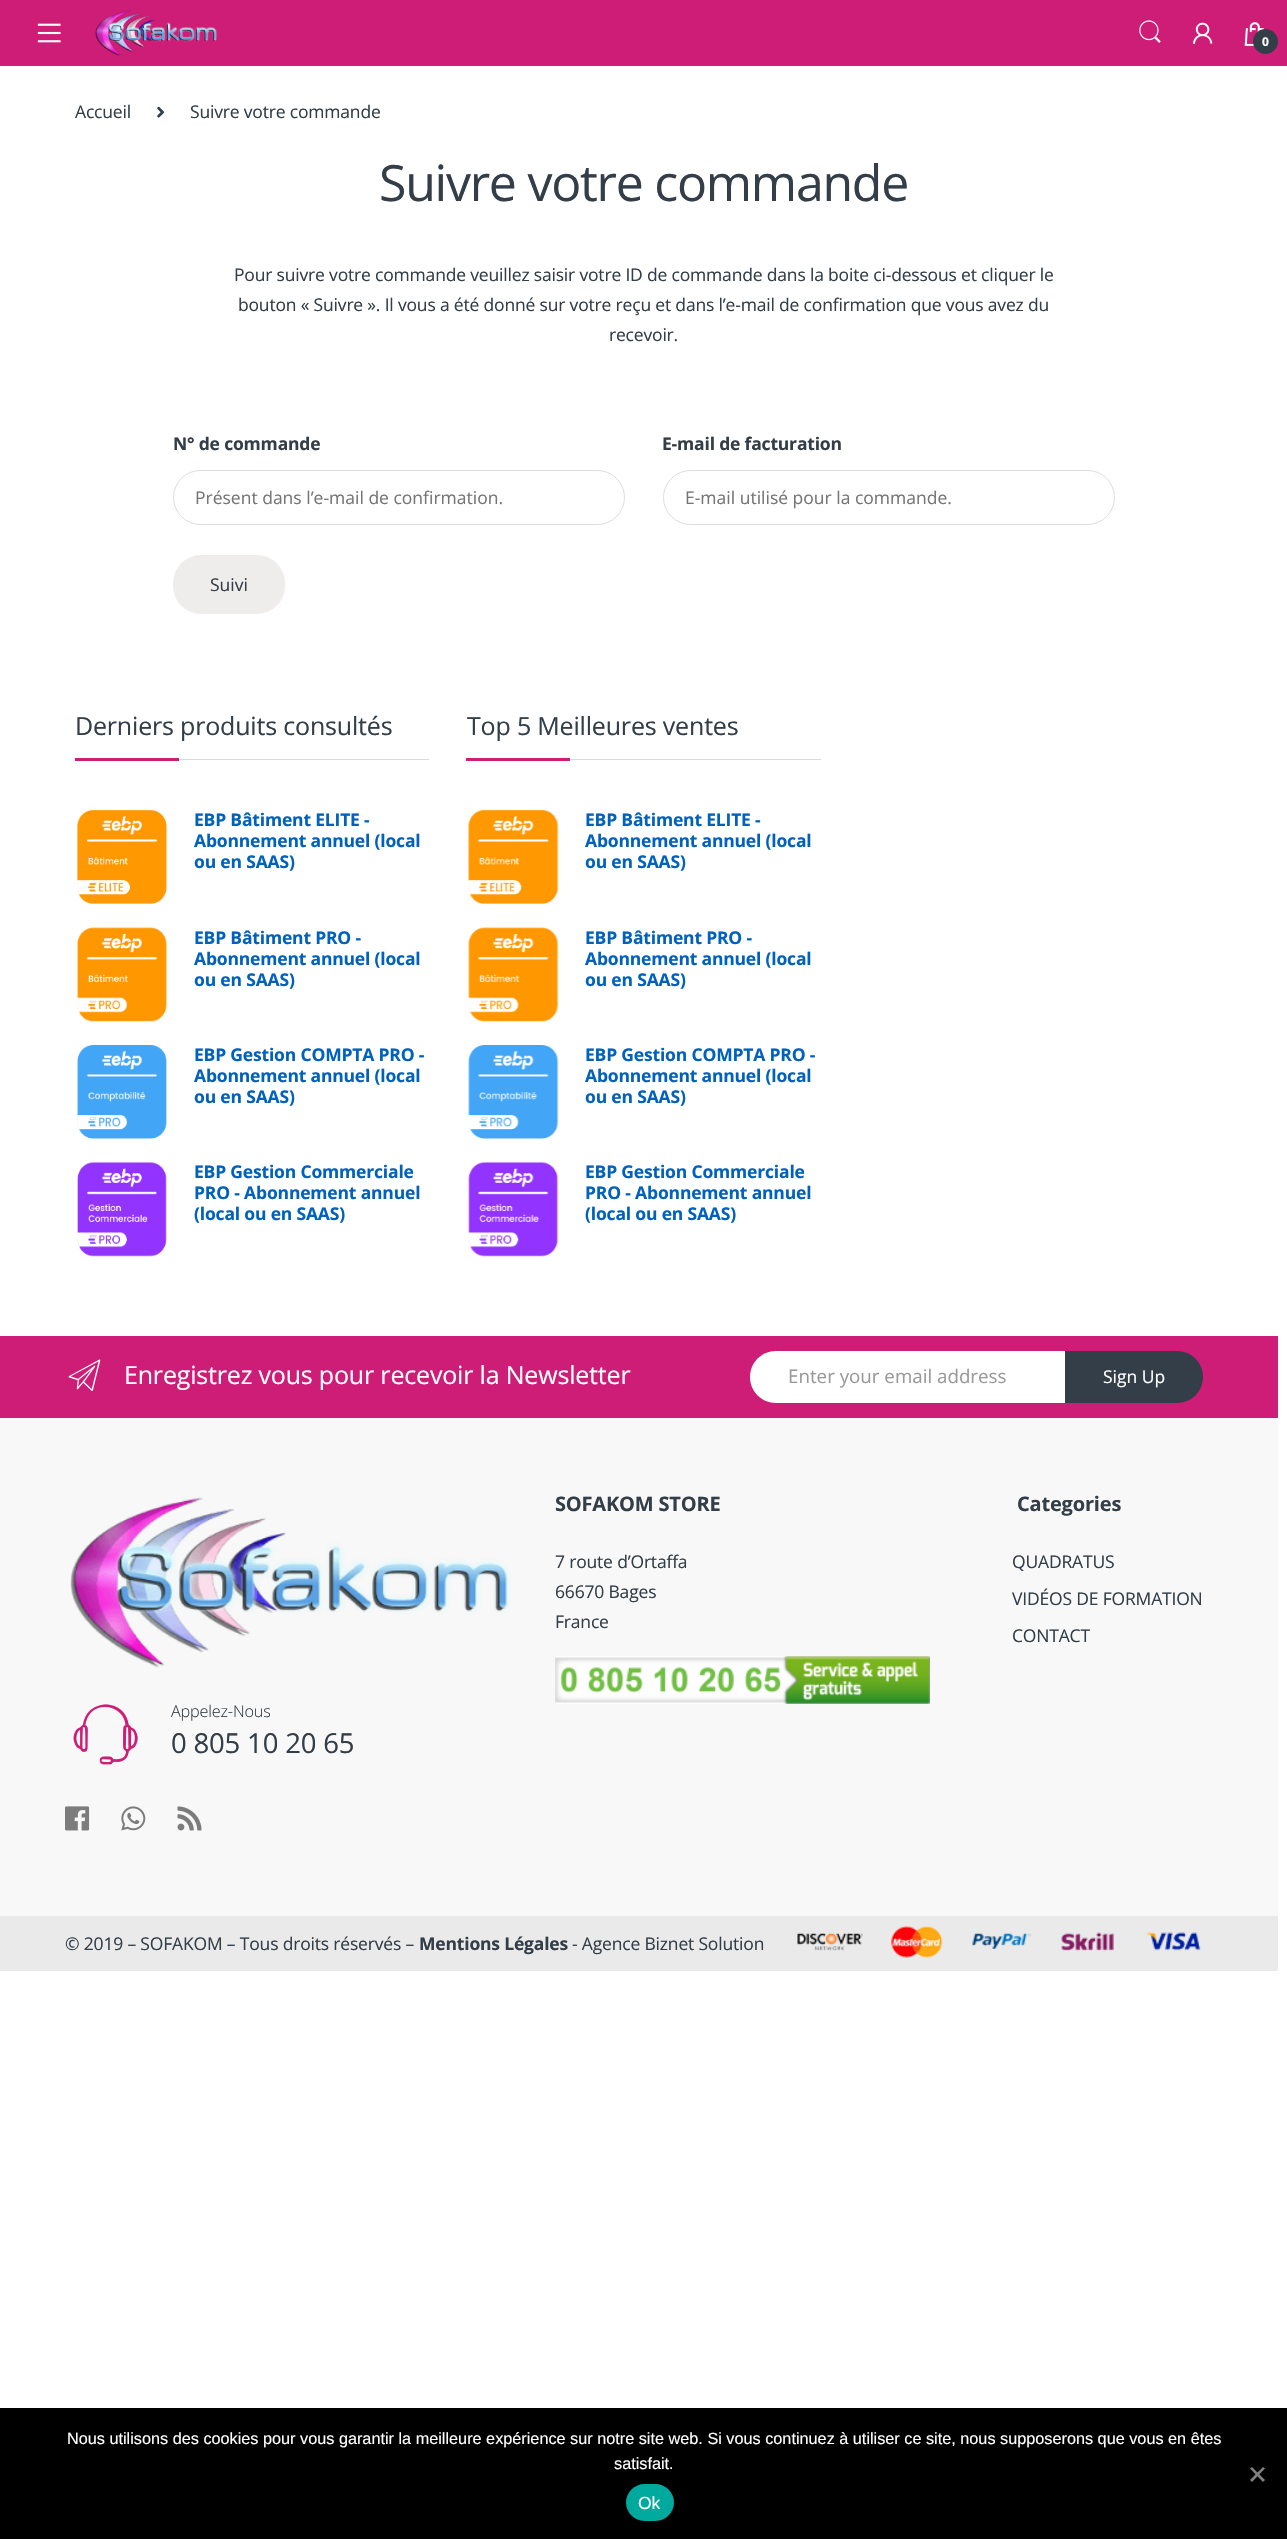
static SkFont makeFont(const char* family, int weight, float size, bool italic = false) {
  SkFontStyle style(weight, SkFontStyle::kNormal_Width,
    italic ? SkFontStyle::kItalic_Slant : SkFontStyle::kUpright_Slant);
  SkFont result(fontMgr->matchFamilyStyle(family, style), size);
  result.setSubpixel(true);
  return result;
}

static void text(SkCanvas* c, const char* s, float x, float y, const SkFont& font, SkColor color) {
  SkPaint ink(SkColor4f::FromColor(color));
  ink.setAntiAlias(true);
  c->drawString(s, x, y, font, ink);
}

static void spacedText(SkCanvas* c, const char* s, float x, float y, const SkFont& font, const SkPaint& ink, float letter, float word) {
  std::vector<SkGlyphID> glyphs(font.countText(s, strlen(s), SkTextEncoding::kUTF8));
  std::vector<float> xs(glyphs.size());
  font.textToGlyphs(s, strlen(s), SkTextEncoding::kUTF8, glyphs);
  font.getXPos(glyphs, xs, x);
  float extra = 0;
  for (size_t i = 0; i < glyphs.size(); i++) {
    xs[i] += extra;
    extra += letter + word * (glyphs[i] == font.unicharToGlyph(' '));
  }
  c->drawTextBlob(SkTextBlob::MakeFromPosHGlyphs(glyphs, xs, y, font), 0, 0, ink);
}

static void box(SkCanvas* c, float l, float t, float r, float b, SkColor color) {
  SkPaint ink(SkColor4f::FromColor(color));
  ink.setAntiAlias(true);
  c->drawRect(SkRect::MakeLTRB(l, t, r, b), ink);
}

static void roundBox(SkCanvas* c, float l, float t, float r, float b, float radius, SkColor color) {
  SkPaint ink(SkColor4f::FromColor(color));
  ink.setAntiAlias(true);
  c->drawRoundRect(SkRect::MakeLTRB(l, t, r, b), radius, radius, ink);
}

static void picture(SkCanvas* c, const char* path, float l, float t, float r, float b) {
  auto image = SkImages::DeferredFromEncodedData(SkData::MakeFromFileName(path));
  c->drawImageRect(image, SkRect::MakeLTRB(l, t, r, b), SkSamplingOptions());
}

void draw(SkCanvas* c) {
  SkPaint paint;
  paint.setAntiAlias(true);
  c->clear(0xffffffff);
  box(c, 0, 0, 1287, 66, 0xffce1d76);
  picture(c, "img_01.png", 37, 23, 61, 43);
  picture(c, "img_02.png", 95, 10, 217, 56);
  picture(c, "img_03.png", 1139, 20, 1161, 43);
  picture(c, "img_04.png", 1193, 22, 1213, 44);
  picture(c, "img_05.png", 1244, 22, 1264, 46);
  paint.setColor(0xff333e48);
  c->drawCircle(1265.5f, 41.5f, 12.5f, paint);
  SkFont face1 = makeFont("Open Sans", 700, 12);
  paint.setColor(0xffffffff);
  spacedText(c, "0", 1262, 46, face1, paint, -0.18f, 0);
  SkFont face2 = makeFont("Open Sans", 400, 17.5f);
  paint.setColor(0xff333e48);
  spacedText(c, "Accueil", 75, 118, face2, paint, -0.18f, 0);
  picture(c, "img_06.png", 157, 106, 165, 118);
  spacedText(c, "Suivre votre commande", 190, 118, face2, paint, -0.18f, 0);
  SkFont face3 = makeFont("Open Sans", 400, 50);
  spacedText(c, "Suivre votre commande", 379, 201, face3, paint, -1.25f, 0);
  spacedText(c, "Pour suivre votre commande veuillez saisir votre ID de commande dans la boite ci-dessous et cliquer le", 234, 281, face2, paint, -0.18f, 0);
  spacedText(c, "bouton « Suivre ». Il vous a été donné sur votre reçu et dans l’e-mail de confirmation que vous avez du", 238, 311, face2, paint, -0.18f, 0);
  spacedText(c, "recevoir.", 609, 341, face2, paint, -0.18f, 0);
  SkFont face4 = makeFont("Open Sans", 700, 17.5f);
  spacedText(c, "N° de commande", 173, 450, face4, paint, -0.18f, 0);
  paint.setStyle(SkPaint::kStroke_Style);
  paint.setStrokeWidth(1);
  paint.setColor(0xffdddddd);
  c->drawRoundRect(SkRect::MakeLTRB(173.5f, 470.5f, 624.5f, 524.5f), 27, 27, paint);
  text(c, "Présent dans l’e-mail de confirmation.", 195, 504, face2, 0xff757575);
  paint.setStyle(SkPaint::kFill_Style);
  paint.setColor(0xff333e48);
  spacedText(c, "E-mail de facturation", 662, 450, face4, paint, -0.18f, 0);
  paint.setStyle(SkPaint::kStroke_Style);
  paint.setColor(0xffdddddd);
  c->drawRoundRect(SkRect::MakeLTRB(663.5f, 470.5f, 1114.5f, 524.5f), 27, 27, paint);
  text(c, "E-mail utilisé pour la commande.", 685, 504, face2, 0xff757575);
  roundBox(c, 173, 555, 285, 614, 28, 0xffefecec);
  text(c, "Suivi", 210, 591, face2, 0xff333e48);
  box(c, 179, 759, 429, 760, 0xffdadada);
  SkFont face5 = makeFont("Open Sans", 400, 25);
  paint.setStyle(SkPaint::kFill_Style);
  paint.setColor(0xff333e48);
  spacedText(c, "Derniers produits consultés", 75, 735, face5, paint, -0.18f, 0);
  box(c, 75, 758, 179, 761, 0xffce1d76);
  picture(c, "img_07.png", 77, 810, 167, 904);
  paint.setColor(0xff0062bd);
  spacedText(c, "EBP Bâtiment ELITE -", 194, 826, face4, paint, -0.18f, 0);
  spacedText(c, "Abonnement annuel (local", 194, 847, face4, paint, -0.18f, 0);
  spacedText(c, "ou en SAAS)", 194, 868, face4, paint, -0.18f, 0);
  picture(c, "img_08.png", 77, 927, 167, 1022);
  spacedText(c, "EBP Bâtiment PRO -", 194, 944, face4, paint, -0.18f, 0);
  spacedText(c, "Abonnement annuel (local", 194, 965, face4, paint, -0.18f, 0);
  spacedText(c, "ou en SAAS)", 194, 986, face4, paint, -0.18f, 0);
  picture(c, "img_09.png", 77, 1045, 167, 1139);
  spacedText(c, "EBP Gestion COMPTA PRO -", 194, 1061, face4, paint, -0.18f, 0);
  spacedText(c, "Abonnement annuel (local", 194, 1082, face4, paint, -0.18f, 0);
  spacedText(c, "ou en SAAS)", 194, 1103, face4, paint, -0.18f, 0);
  picture(c, "img_10.png", 77, 1162, 167, 1257);
  spacedText(c, "EBP Gestion Commerciale", 194, 1178, face4, paint, -0.18f, 0);
  spacedText(c, "PRO - Abonnement annuel", 194, 1199, face4, paint, -0.18f, 0);
  spacedText(c, "(local ou en SAAS)", 194, 1220, face4, paint, -0.18f, 0);
  box(c, 570, 759, 821, 760, 0xffdadada);
  paint.setColor(0xff333e48);
  spacedText(c, "Top 5 Meilleures ventes", 467, 735, face5, paint, -0.18f, 0);
  box(c, 466, 758, 570, 761, 0xffce1d76);
  picture(c, "img_11.png", 468, 810, 559, 904);
  paint.setColor(0xff0062bd);
  spacedText(c, "EBP Bâtiment ELITE -", 585, 826, face4, paint, -0.18f, 0);
  spacedText(c, "Abonnement annuel (local", 585, 847, face4, paint, -0.18f, 0);
  spacedText(c, "ou en SAAS)", 585, 868, face4, paint, -0.18f, 0);
  picture(c, "img_12.png", 468, 927, 559, 1022);
  spacedText(c, "EBP Bâtiment PRO -", 585, 944, face4, paint, -0.18f, 0);
  spacedText(c, "Abonnement annuel (local", 585, 965, face4, paint, -0.18f, 0);
  spacedText(c, "ou en SAAS)", 585, 986, face4, paint, -0.18f, 0);
  picture(c, "img_13.png", 468, 1045, 559, 1139);
  spacedText(c, "EBP Gestion COMPTA PRO -", 585, 1061, face4, paint, -0.18f, 0);
  spacedText(c, "Abonnement annuel (local", 585, 1082, face4, paint, -0.18f, 0);
  spacedText(c, "ou en SAAS)", 585, 1103, face4, paint, -0.18f, 0);
  picture(c, "img_14.png", 468, 1162, 559, 1257);
  spacedText(c, "EBP Gestion Commerciale", 585, 1178, face4, paint, -0.18f, 0);
  spacedText(c, "PRO - Abonnement annuel", 585, 1199, face4, paint, -0.18f, 0);
  spacedText(c, "(local ou en SAAS)", 585, 1220, face4, paint, -0.18f, 0);
  box(c, 0, 1336, 1278, 1418, 0xffce1d76);
  picture(c, "img_15.png", 68, 1359, 101, 1392);
  paint.setColor(0xffffffff);
  spacedText(c, "Enregistrez vous pour recevoir la Newsletter", 124, 1384, face5, paint, -0.18f, 0);
  c->drawPath(SkPathBuilder().moveTo(776, 1351).lineTo(1066, 1351).lineTo(1066, 1403).lineTo(776, 1403).cubicTo(761.5f, 1403, 750, 1391.5f, 750, 1377).cubicTo(750, 1362.5f, 761.5f, 1351, 776, 1351).close().detach(), paint);
  SkFont face6 = makeFont("Open Sans", 400, 18.75f);
  text(c, "Enter your email address", 788, 1383, face6, 0xff999999);
  paint.setColor(0xff333e48);
  c->drawPath(SkPathBuilder().moveTo(1065, 1351).lineTo(1177, 1351).cubicTo(1191.5f, 1351, 1203, 1362.5f, 1203, 1377).cubicTo(1203, 1391.5f, 1191.5f, 1403, 1177, 1403).lineTo(1065, 1403).close().detach(), paint);
  text(c, "Sign Up", 1103, 1383, face2, 0xffffffff);
  box(c, 0, 1418, 1278, 1916, 0xfff8f8f8);
  SkFont face7 = makeFont("Open Sans", 700, 20);
  spacedText(c, "SOFAKOM STORE", 555, 1511, face7, paint, -0.18f, 0);
  spacedText(c, "7 route d’Ortaffa", 555, 1568, face2, paint, -0.18f, 0);
  spacedText(c, "66670 Bages", 555, 1598, face2, paint, -0.18f, 0);
  spacedText(c, "France", 555, 1628, face2, paint, -0.18f, 0);
  picture(c, "img_16.png", 555, 1656, 930, 1704);
  spacedText(c, "Categories", 1017, 1511, face7, paint, -0.18f, 0);
  spacedText(c, "QUADRATUS", 1012, 1568, face2, paint, -0.18f, 0);
  spacedText(c, "VIDÉOS DE FORMATION", 1012, 1605, face2, paint, -0.18f, 0);
  spacedText(c, "CONTACT", 1012, 1642, face2, paint, -0.18f, 0);
  picture(c, "img_17.png", 70, 1497, 511, 1668);
  picture(c, "img_18.png", 73, 1704, 138, 1765);
  SkFont face8 = makeFont("Open Sans", 300, 16.25f);
  spacedText(c, "Appelez-Nous", 171, 1717, face8, paint, -0.18f, 0);
  SkFont face9 = makeFont("Open Sans", 400, 27.5f);
  spacedText(c, "0 805 10 20 65", 171, 1753, face9, paint, -0.18f, 0);
  picture(c, "img_19.png", 65, 1806, 90, 1831);
  picture(c, "img_20.png", 121, 1806, 146, 1831);
  picture(c, "img_21.png", 177, 1806, 202, 1831);
  box(c, 0, 1916, 1278, 1971, 0xffeaeaea);
  spacedText(c, "© 2019 – SOFAKOM – Tous droits réservés –", 65, 1950, face2, paint, -0.18f, 0);
  spacedText(c, "Mentions Légales", 419, 1950, face4, paint, -0.18f, 0);
  spacedText(c, "- Agence Biznet Solution", 572, 1950, face2, paint, -0.18f, 0);
  picture(c, "img_22.png", 797, 1926, 1201, 1958);
  box(c, 0, 2408, 1287, 2539, 0xff000000);
  SkFont face10 = makeFont("Liberation Sans", 400, 16.25f);
  text(c, "Nous utilisons des cookies pour vous garantir la meilleure expérience sur notre site web. Si vous continuez à utiliser ce site, nous supposerons que vous en êtes", 67, 2444, face10, 0xffffffff);
  text(c, "satisfait.", 614, 2469, face10, 0xffffffff);
  paint.setColor(0xff808080);
  c->drawPath(SkPathBuilder().moveTo(1263, 2467).lineTo(1265, 2468.5f).lineTo(1252, 2482).lineTo(1250, 2480).close().detach(), paint);
  c->drawPath(SkPathBuilder().moveTo(1250, 2468.5f).lineTo(1252, 2467).lineTo(1265, 2480).lineTo(1263, 2482).close().detach(), paint);
  roundBox(c, 626, 2484, 674, 2521, 18.5f, 0xff00a99d);
  SkFont face11 = makeFont("Liberation Sans", 400, 17.5f);
  text(c, "Ok", 638, 2509, face11, 0xffffffff);
}
